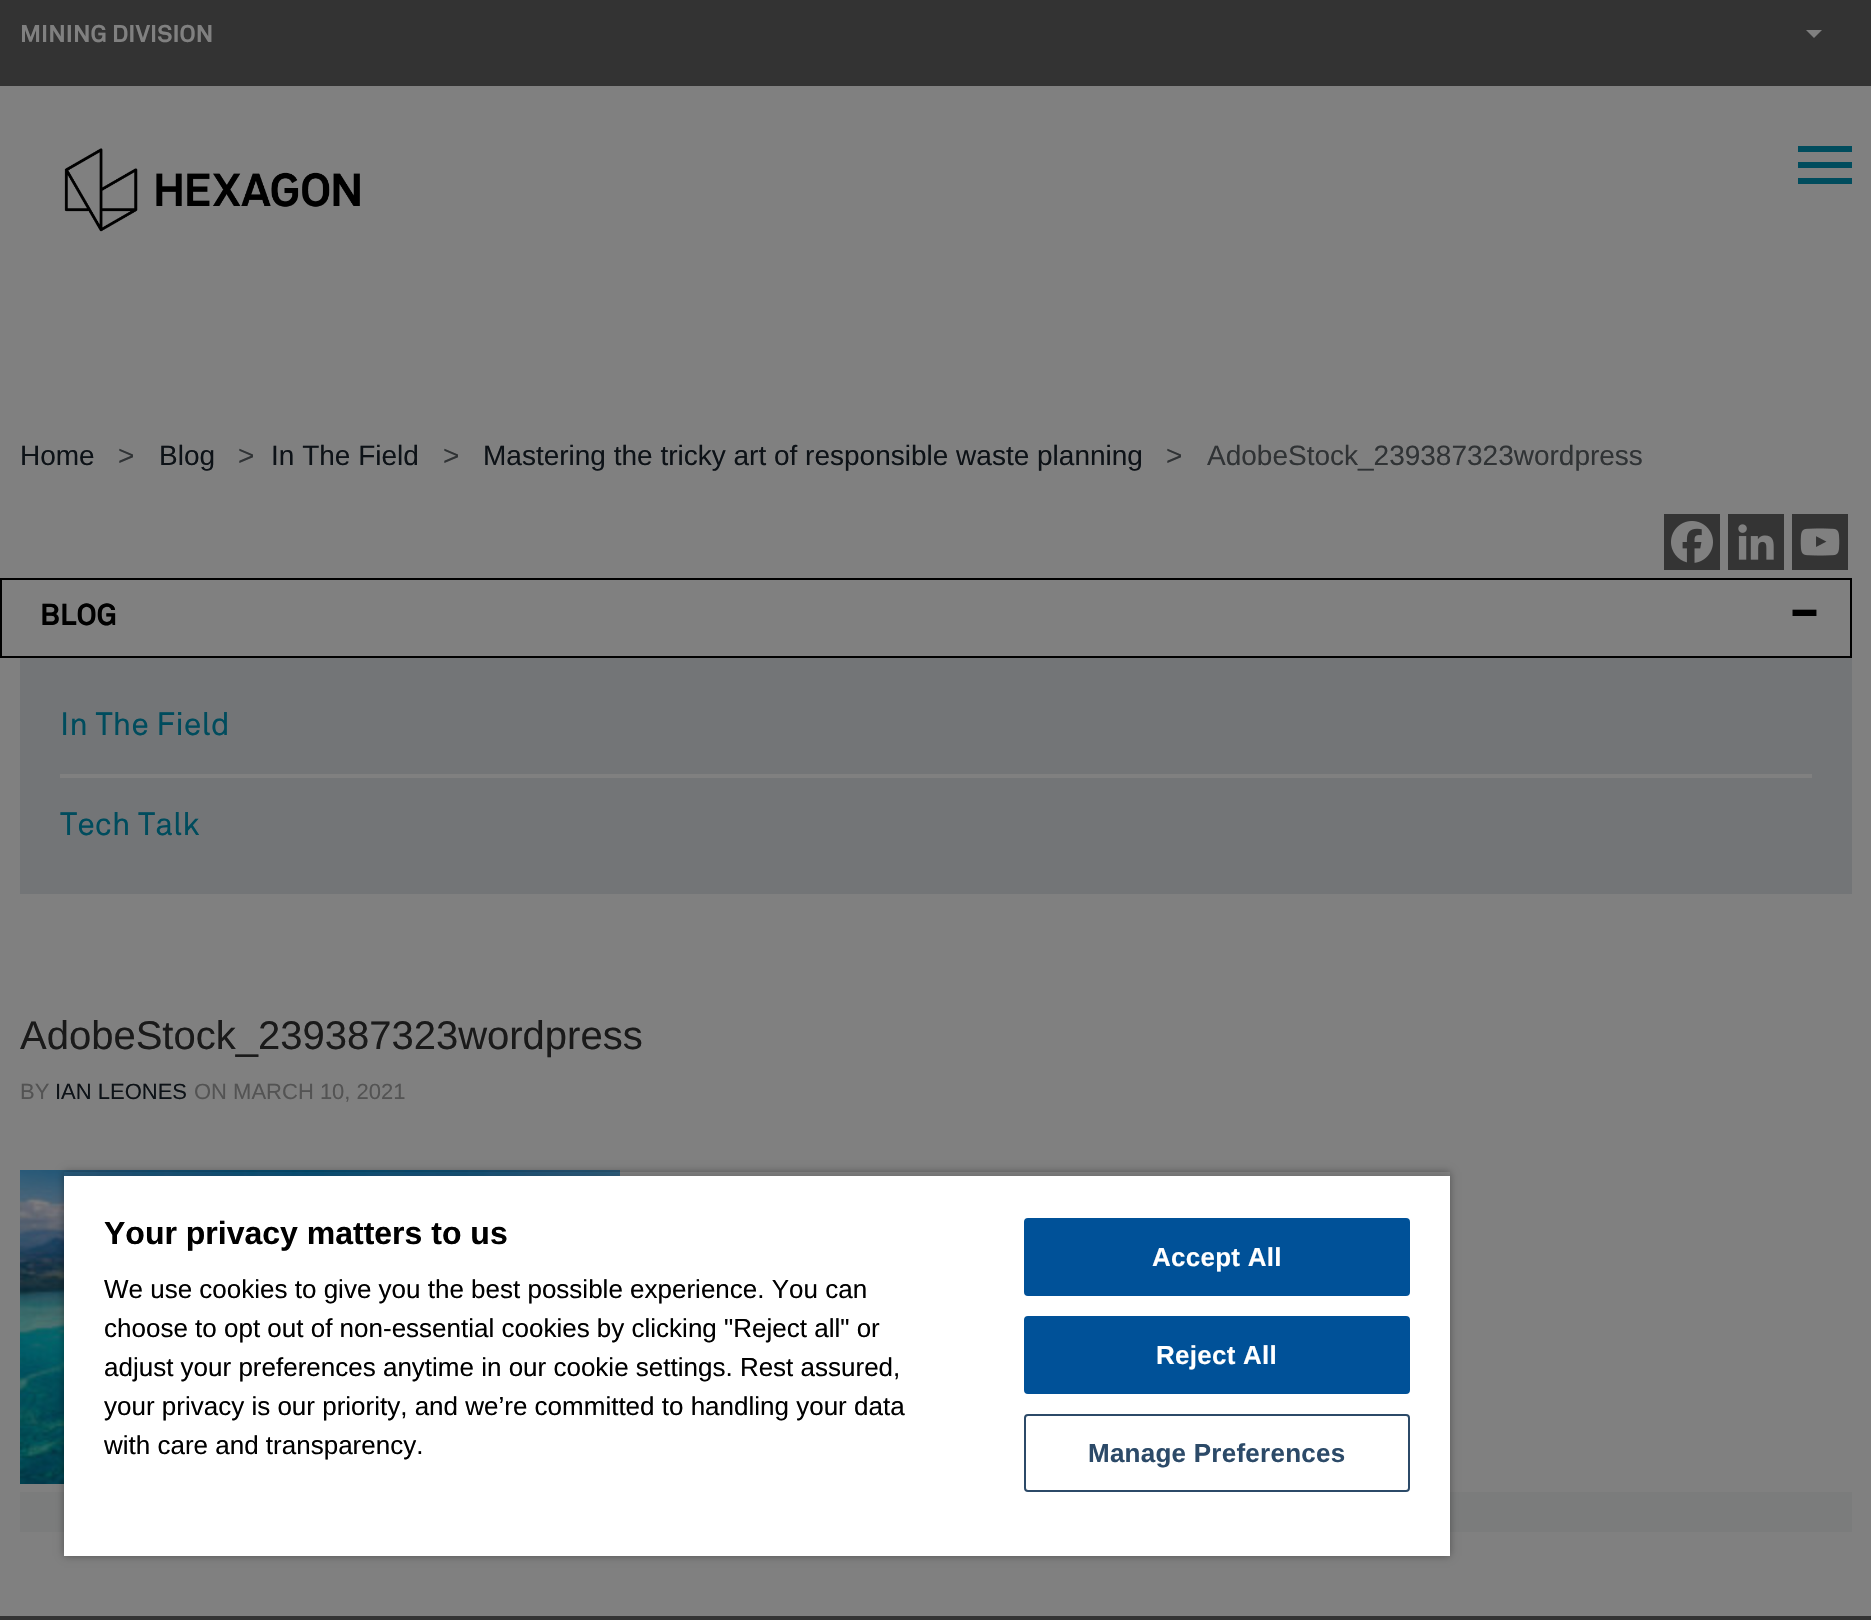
static SkFont makeFont(const char* family, int weight, float size, bool italic = false) {
  SkFontStyle style(weight, SkFontStyle::kNormal_Width,
    italic ? SkFontStyle::kItalic_Slant : SkFontStyle::kUpright_Slant);
  SkFont result(fontMgr->matchFamilyStyle(family, style), size);
  result.setSubpixel(true);
  return result;
}

static void text(SkCanvas* c, const char* s, float x, float y, const SkFont& font, SkColor color) {
  SkPaint ink(SkColor4f::FromColor(color));
  ink.setAntiAlias(true);
  c->drawString(s, x, y, font, ink);
}

static void spacedText(SkCanvas* c, const char* s, float x, float y, const SkFont& font, const SkPaint& ink, float letter, float word) {
  std::vector<SkGlyphID> glyphs(font.countText(s, strlen(s), SkTextEncoding::kUTF8));
  std::vector<float> xs(glyphs.size());
  font.textToGlyphs(s, strlen(s), SkTextEncoding::kUTF8, glyphs);
  font.getXPos(glyphs, xs, x);
  float extra = 0;
  for (size_t i = 0; i < glyphs.size(); i++) {
    xs[i] += extra;
    extra += letter + word * (glyphs[i] == font.unicharToGlyph(' '));
  }
  c->drawTextBlob(SkTextBlob::MakeFromPosHGlyphs(glyphs, xs, y, font), 0, 0, ink);
}

static void box(SkCanvas* c, float l, float t, float r, float b, SkColor color) {
  SkPaint ink(SkColor4f::FromColor(color));
  ink.setAntiAlias(true);
  c->drawRect(SkRect::MakeLTRB(l, t, r, b), ink);
}

static void picture(SkCanvas* c, const char* path, float l, float t, float r, float b) {
  auto image = SkImages::DeferredFromEncodedData(SkData::MakeFromFileName(path));
  c->drawImageRect(image, SkRect::MakeLTRB(l, t, r, b), SkSamplingOptions());
}

void draw(SkCanvas* c) {
  SkPaint paint;
  paint.setAntiAlias(true);
  c->clear(0xff808080);
  box(c, 0, 0, 1871, 86, 0xff333333);
  SkFont face1 = makeFont("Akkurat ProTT", 700, 24);
  text(c, "MINING DIVISION", 20, 42, face1, 0xff808080);
  paint.setColor(0xff808080);
  c->drawPath(SkPathBuilder().moveTo(1806, 30).lineTo(1822, 30).lineTo(1814, 38).close().detach(), paint);
  picture(c, "img_01.png", 64, 148, 360, 232);
  box(c, 1798, 146, 1852, 152, 0xff004c5d);
  box(c, 1798, 162, 1852, 168, 0xff004c5d);
  box(c, 1798, 178, 1852, 184, 0xff004c5d);
  SkFont face2 = makeFont("Liberation Sans", 400, 28);
  text(c, "Home", 20, 465, face2, 0xff0d1217);
  text(c, ">", 118, 465, face2, 0xff303335);
  text(c, "Blog", 159, 465, face2, 0xff0d1217);
  text(c, ">", 238, 465, face2, 0xff303335);
  text(c, "In The Field", 271, 465, face2, 0xff0d1217);
  text(c, ">", 443, 465, face2, 0xff303335);
  text(c, "Mastering the tricky art of responsible waste planning", 483, 465, face2, 0xff0d1217);
  text(c, ">", 1166, 465, face2, 0xff303335);
  text(c, "AdobeStock_239387323wordpress", 1207, 465, face2, 0xff303335);
  box(c, 1664, 514, 1720, 570, 0xff343434);
  picture(c, "img_02.png", 1671, 521, 1713, 563);
  box(c, 1728, 514, 1784, 570, 0xff343434);
  picture(c, "img_03.png", 1738, 524, 1774, 560);
  box(c, 1792, 514, 1848, 570, 0xff343434);
  picture(c, "img_04.png", 1800, 528, 1840, 556);
  paint.setStyle(SkPaint::kStroke_Style);
  paint.setStrokeWidth(2);
  paint.setColor(0xff000000);
  c->drawRect(SkRect::MakeLTRB(1, 579, 1851, 657), paint);
  SkFont face3 = makeFont("Akkurat ProTT", 700, 30);
  text(c, "BLOG", 40, 625, face3, 0xff000000);
  SkFont face4 = makeFont("Akkurat ProTT", 400, 80);
  text(c, "-", 1787, 637, face4, 0xff000000);
  box(c, 20, 658, 1852, 894, 0xff737577);
  box(c, 60, 774, 1812, 778, 0xff808080);
  SkFont face5 = makeFont("Akkurat ProTT", 400, 32);
  text(c, "In The Field", 60, 735, face5, 0xff004c5d);
  text(c, "Tech Talk", 60, 835, face5, 0xff004c5d);
  SkFont face6 = makeFont("Liberation Sans", 400, 40);
  text(c, "AdobeStock_239387323wordpress", 20, 1049, face6, 0xff1a1a1a);
  SkFont face7 = makeFont("Liberation Sans", 400, 22);
  text(c, "BY", 20, 1099, face7, 0xff535353);
  text(c, "IAN LEONES", 55, 1099, face7, 0xff0d1217);
  text(c, "ON MARCH 10, 2021", 194, 1099, face7, 0xff535353);
  picture(c, "img_05.png", 20, 1170, 620, 1484);
  box(c, 20, 1492, 1852, 1532, 0xff7b7c7c);
  box(c, 0, 1616, 1871, 1620, 0xff333333);
  c->save();
  c->clipPath(SkPathBuilder(SkPathFillType::kEvenOdd).moveTo(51, 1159).lineTo(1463, 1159).lineTo(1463, 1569).lineTo(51, 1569).close().moveTo(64, 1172).lineTo(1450, 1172).lineTo(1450, 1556).lineTo(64, 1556).close().detach(), true);
  paint.setStyle(SkPaint::kFill_Style);
  paint.setColor(0x59000000);
  paint.setMaskFilter(SkMaskFilter::MakeBlur(kNormal_SkBlurStyle, 4));
  c->drawRect(SkRect::MakeLTRB(64, 1172, 1450, 1556), paint);
  paint.setMaskFilter(nullptr);
  c->restore();
  c->save();
  c->clipRect(SkRect::MakeLTRB(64, 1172, 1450, 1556));
  paint.setColor(0x33000000);
  paint.setMaskFilter(SkMaskFilter::MakeBlur(kNormal_SkBlurStyle, 4));
  c->drawRect(SkRect::MakeLTRB(64, 1176, 1450, 1556), paint);
  paint.setMaskFilter(nullptr);
  c->restore();
  box(c, 64, 1176, 1450, 1556, 0xffffffff);
  SkFont face8 = makeFont("Liberation Sans", 700, 32);
  text(c, "Your privacy matters to us", 104, 1244, face8, 0xff000000);
  SkFont face9 = makeFont("Liberation Sans", 400, 26);
  text(c, "We use cookies to give you the best possible experience. You can", 104, 1298, face9, 0xff000000);
  text(c, "choose to opt out of non-essential cookies by clicking \"Reject all\" or", 104, 1337, face9, 0xff000000);
  text(c, "adjust your preferences anytime in our cookie settings. Rest assured,", 104, 1376, face9, 0xff000000);
  text(c, "your privacy is our priority, and we’re committed to handling your data", 104, 1415, face9, 0xff000000);
  text(c, "with care and transparency.", 104, 1454, face9, 0xff000000);
  paint.setColor(0xff005198);
  c->drawRoundRect(SkRect::MakeLTRB(1025, 1219, 1409, 1295), 3, 3, paint);
  paint.setStyle(SkPaint::kStroke_Style);
  c->drawRoundRect(SkRect::MakeLTRB(1025, 1219, 1409, 1295), 3, 3, paint);
  SkFont face10 = makeFont("Liberation Sans", 700, 26);
  paint.setStyle(SkPaint::kFill_Style);
  paint.setColor(0xffffffff);
  spacedText(c, "Accept All", 1152, 1266, face10, paint, 0.25f, 0);
  paint.setColor(0xff005198);
  c->drawRoundRect(SkRect::MakeLTRB(1025, 1317, 1409, 1393), 3, 3, paint);
  paint.setStyle(SkPaint::kStroke_Style);
  c->drawRoundRect(SkRect::MakeLTRB(1025, 1317, 1409, 1393), 3, 3, paint);
  paint.setStyle(SkPaint::kFill_Style);
  paint.setColor(0xffffffff);
  spacedText(c, "Reject All", 1156, 1364, face10, paint, 0.25f, 0);
  paint.setStyle(SkPaint::kStroke_Style);
  paint.setColor(0xff2c4a68);
  c->drawRoundRect(SkRect::MakeLTRB(1025, 1415, 1409, 1491), 3, 3, paint);
  paint.setStyle(SkPaint::kFill_Style);
  spacedText(c, "Manage Preferences", 1088, 1462, face10, paint, 0.25f, 0);
}
